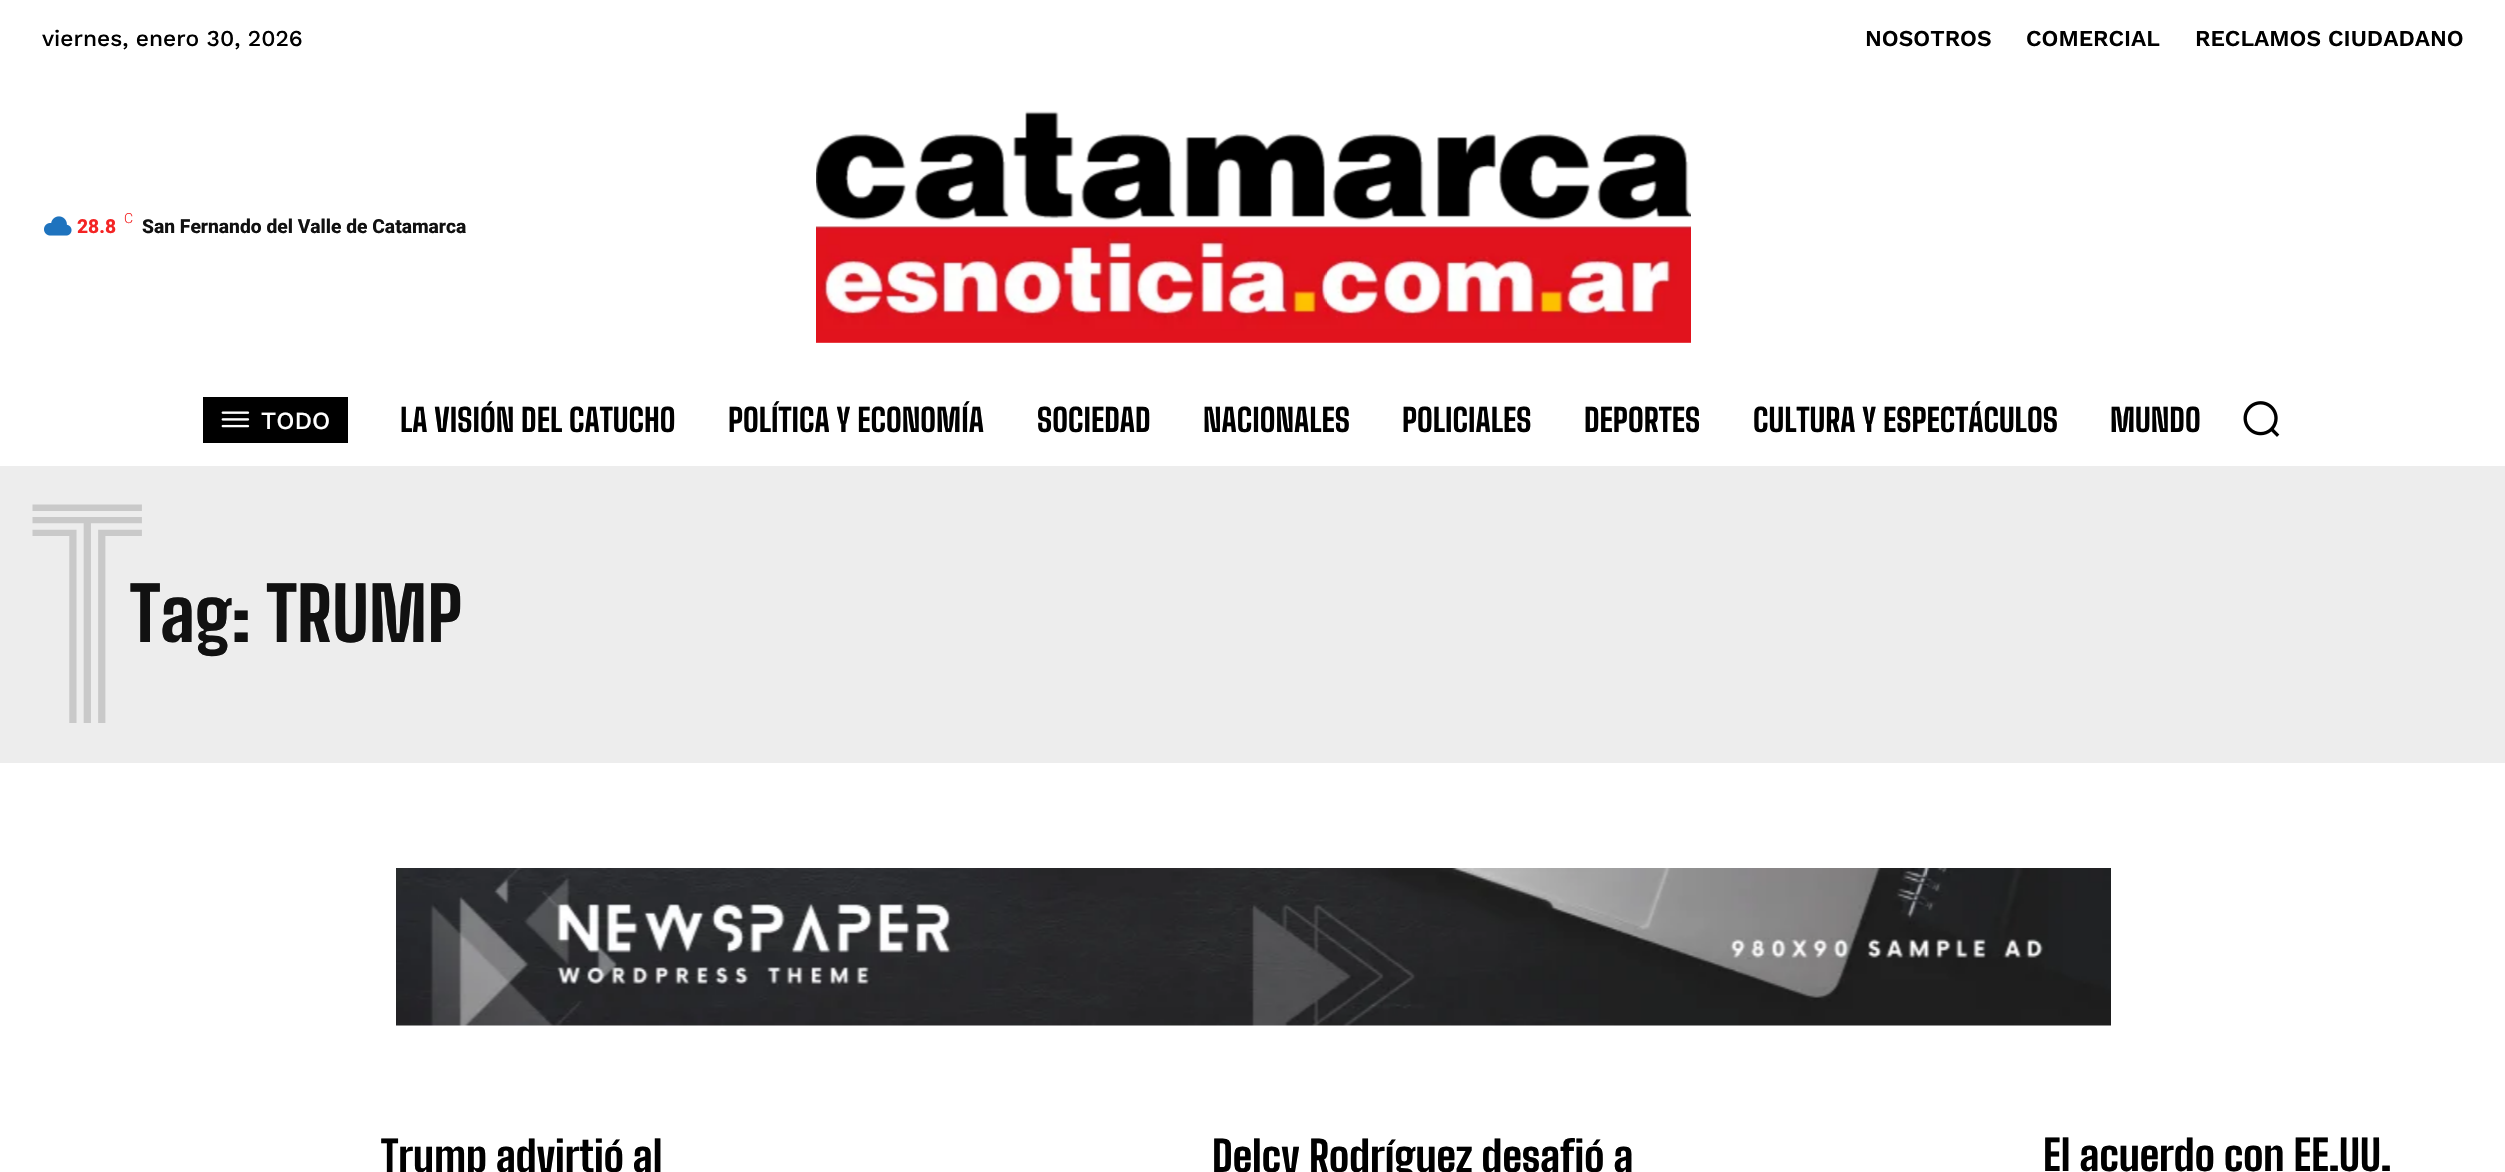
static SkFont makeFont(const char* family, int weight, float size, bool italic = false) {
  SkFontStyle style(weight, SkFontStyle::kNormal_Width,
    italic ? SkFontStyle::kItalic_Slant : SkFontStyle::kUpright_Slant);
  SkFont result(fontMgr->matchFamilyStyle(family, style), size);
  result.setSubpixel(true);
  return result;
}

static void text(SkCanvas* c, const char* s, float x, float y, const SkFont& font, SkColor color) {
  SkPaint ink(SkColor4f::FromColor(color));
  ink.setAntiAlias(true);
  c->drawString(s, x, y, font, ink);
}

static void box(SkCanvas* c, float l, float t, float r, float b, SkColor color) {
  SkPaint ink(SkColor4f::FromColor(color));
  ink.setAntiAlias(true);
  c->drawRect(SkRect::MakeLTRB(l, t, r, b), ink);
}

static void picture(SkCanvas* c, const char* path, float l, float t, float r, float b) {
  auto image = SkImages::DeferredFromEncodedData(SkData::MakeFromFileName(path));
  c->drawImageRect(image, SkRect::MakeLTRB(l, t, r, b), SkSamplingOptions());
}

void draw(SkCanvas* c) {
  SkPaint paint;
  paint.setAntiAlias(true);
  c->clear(0xffffffff);
  SkFont face1 = makeFont("Work Sans", 500, 22.75f);
  text(c, "viernes, enero 30, 2026", 42, 46, face1, 0xff000000);
  SkFont face2 = makeFont("Work Sans", 600, 22.75f);
  text(c, "NOSOTROS", 1865, 46, face2, 0xff000000);
  text(c, "COMERCIAL", 2026, 46, face2, 0xff000000);
  text(c, "RECLAMOS CIUDADANO", 2195, 46, face2, 0xff000000);
  picture(c, "img_01.png", 44, 216, 72, 236);
  SkFont face3 = makeFont("Roboto", 800, 19.25f);
  text(c, "28.8", 77, 233, face3, 0xfff42424);
  SkFont face4 = makeFont("Roboto", 300, 14);
  text(c, "C", 124, 223, face4, 0xfff42424);
  text(c, "San Fernando del Valle de Catamarca", 142, 233, face3, 0xff111111);
  picture(c, "img_02.png", 816, 111, 1691, 343);
  box(c, 203, 397, 348, 443, 0xff000000);
  picture(c, "img_03.png", 221, 411, 250, 428);
  SkFont face5 = makeFont("Work Sans", 500, 24.5f);
  text(c, "TODO", 261, 429, face5, 0xffffffff);
  SkFont face6 = makeFont("Big Shoulders Text", 800, 31.5f);
  text(c, "LA VISIÓN DEL CATUCHO", 400, 432, face6, 0xff000000);
  text(c, "POLÍTICA Y ECONOMÍA", 728, 432, face6, 0xff000000);
  text(c, "SOCIEDAD", 1037, 432, face6, 0xff000000);
  text(c, "NACIONALES", 1203, 432, face6, 0xff000000);
  text(c, "POLICIALES", 1402, 432, face6, 0xff000000);
  text(c, "DEPORTES", 1584, 432, face6, 0xff000000);
  text(c, "CULTURA Y ESPECTÁCULOS", 1753, 432, face6, 0xff000000);
  text(c, "MUNDO", 2110, 432, face6, 0xff000000);
  picture(c, "img_04.png", 2243, 401, 2280, 437);
  box(c, 0, 466, 2505, 763, 0xffededed);
  SkFont face7 = makeFont("Big Shoulders Inline Text", 800, 273);
  text(c, "T", 31, 723, face7, 0xffc9c9c9);
  SkFont face8 = makeFont("Big Shoulders Text", 800, 73.5f);
  text(c, "Tag: TRUMP", 130, 642, face8, 0xff111111);
  picture(c, "img_05.png", 396, 868, 2111, 1026);
  SkFont face9 = makeFont("Big Shoulders Text", 800, 42);
  text(c, "Trump advirtió al", 381, 1172, face9, 0xff000000);
  text(c, "Delcy Rodríguez desafió a", 1212, 1172, face9, 0xff000000);
  text(c, "El acuerdo con EE.UU.", 2043, 1171, face9, 0xff000000);
}
